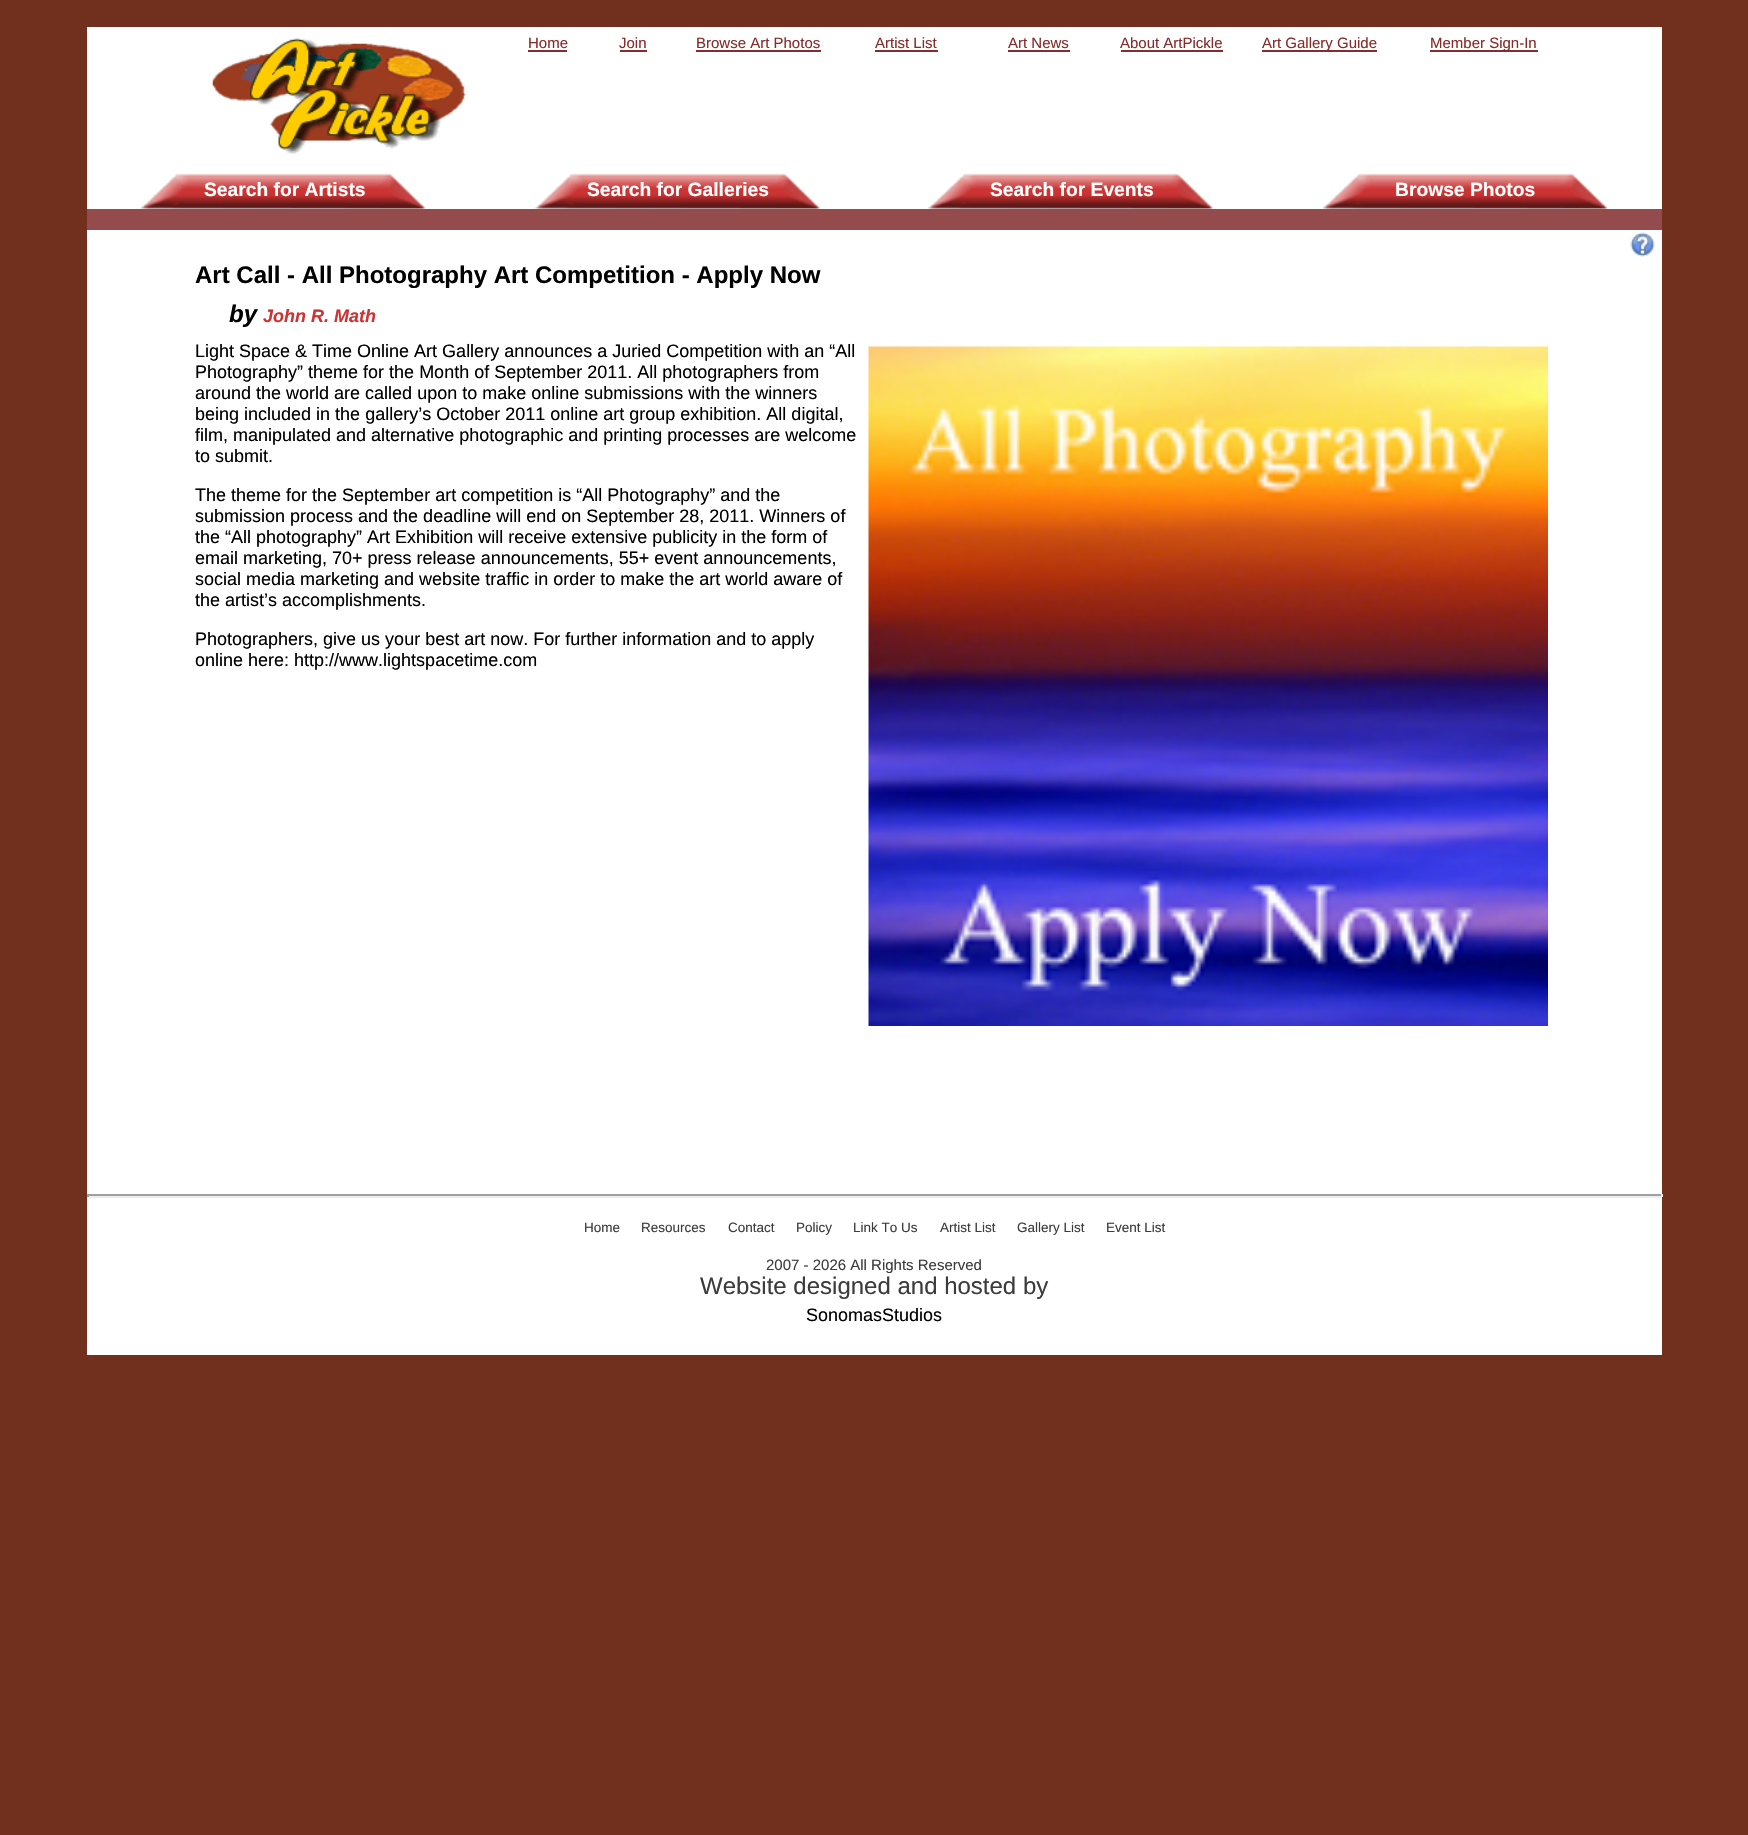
static SkFont makeFont(const char* family, int weight, float size, bool italic = false) {
  SkFontStyle style(weight, SkFontStyle::kNormal_Width,
    italic ? SkFontStyle::kItalic_Slant : SkFontStyle::kUpright_Slant);
  SkFont result(fontMgr->matchFamilyStyle(family, style), size);
  result.setSubpixel(true);
  return result;
}

static void text(SkCanvas* c, const char* s, float x, float y, const SkFont& font, SkColor color) {
  SkPaint ink(SkColor4f::FromColor(color));
  ink.setAntiAlias(true);
  c->drawString(s, x, y, font, ink);
}

static void box(SkCanvas* c, float l, float t, float r, float b, SkColor color) {
  SkPaint ink(SkColor4f::FromColor(color));
  ink.setAntiAlias(true);
  c->drawRect(SkRect::MakeLTRB(l, t, r, b), ink);
}

static void picture(SkCanvas* c, const char* path, float l, float t, float r, float b) {
  auto image = SkImages::DeferredFromEncodedData(SkData::MakeFromFileName(path));
  c->drawImageRect(image, SkRect::MakeLTRB(l, t, r, b), SkSamplingOptions());
}

void draw(SkCanvas* c) {
  SkPaint paint;
  paint.setAntiAlias(true);
  c->clear(0xff71301d);
  box(c, 87, 27, 1662, 1355, 0xffffffff);
  picture(c, "img_01.png", 212, 38, 466, 154);
  SkFont face1 = makeFont("Liberation Sans", 400, 15);
  text(c, "Home", 528, 48, face1, 0xff872c2c);
  box(c, 528, 50, 567, 52, 0xff872c2c);
  text(c, "Join", 619, 48, face1, 0xff872c2c);
  box(c, 620, 50, 647, 52, 0xff872c2c);
  text(c, "Browse Art Photos", 696, 48, face1, 0xff872c2c);
  box(c, 696, 50, 821, 52, 0xff872c2c);
  text(c, "Artist List", 875, 48, face1, 0xff872c2c);
  box(c, 875, 50, 938, 52, 0xff872c2c);
  text(c, "Art News", 1008, 48, face1, 0xff872c2c);
  box(c, 1008, 50, 1070, 52, 0xff872c2c);
  text(c, "About ArtPickle", 1120, 48, face1, 0xff872c2c);
  box(c, 1121, 50, 1223, 52, 0xff872c2c);
  box(c, 1262, 50, 1377, 52, 0xff872c2c);
  text(c, "Art Gallery Guide", 1262, 48, face1, 0xff872c2c);
  box(c, 1430, 50, 1538, 52, 0xff872c2c);
  text(c, "Member Sign-In", 1430, 48, face1, 0xff872c2c);
  picture(c, "img_02.png", 141, 173, 426, 209);
  SkFont face2 = makeFont("Liberation Sans", 700, 19.25f);
  text(c, "Search for Artists", 204, 196, face2, 0xffffffff);
  picture(c, "img_03.png", 535, 173, 821, 209);
  text(c, "Search for Galleries", 587, 196, face2, 0xffffffff);
  picture(c, "img_04.png", 928, 173, 1214, 209);
  text(c, "Search for Events", 990, 196, face2, 0xffffffff);
  picture(c, "img_05.png", 1323, 173, 1608, 209);
  text(c, "Browse Photos", 1395, 196, face2, 0xffffffff);
  box(c, 87, 209, 1662, 230, 0xff944b4b);
  picture(c, "img_06.png", 1630, 232, 1655, 257);
  SkFont face3 = makeFont("Liberation Sans", 700, 24);
  text(c, "Art Call - All Photography Art Competition - Apply Now", 195, 283, face3, 0xff000000);
  SkFont face4 = makeFont("Liberation Sans", 700, 24, true);
  text(c, "by", 229, 322, face4, 0xff000000);
  SkFont face5 = makeFont("Liberation Sans", 700, 18, true);
  text(c, "John R. Math", 263, 322, face5, 0xffcc3333);
  SkFont face6 = makeFont("Liberation Sans", 400, 18);
  text(c, "Light Space & Time Online Art Gallery announces a Juried Competition with an “All", 195, 357, face6, 0xff000000);
  picture(c, "img_07.png", 868, 346, 1548, 1026);
  text(c, "Photography” theme for the Month of September 2011. All photographers from", 195, 378, face6, 0xff000000);
  text(c, "around the world are called upon to make online submissions with the winners", 195, 399, face6, 0xff000000);
  text(c, "being included in the gallery’s October 2011 online art group exhibition. All digital,", 195, 420, face6, 0xff000000);
  text(c, "film, manipulated and alternative photographic and printing processes are welcome", 195, 441, face6, 0xff000000);
  text(c, "to submit.", 195, 462, face6, 0xff000000);
  text(c, "The theme for the September art competition is “All Photography” and the", 195, 501, face6, 0xff000000);
  text(c, "submission process and the deadline will end on September 28, 2011. Winners of", 195, 522, face6, 0xff000000);
  text(c, "the “All photography” Art Exhibition will receive extensive publicity in the form of", 195, 543, face6, 0xff000000);
  text(c, "email marketing, 70+ press release announcements, 55+ event announcements,", 195, 564, face6, 0xff000000);
  text(c, "social media marketing and website traffic in order to make the art world aware of", 195, 585, face6, 0xff000000);
  text(c, "the artist’s accomplishments.", 195, 606, face6, 0xff000000);
  text(c, "Photographers, give us your best art now. For further information and to apply", 195, 645, face6, 0xff000000);
  text(c, "online here: http://www.lightspacetime.com", 195, 666, face6, 0xff000000);
  box(c, 87, 1194, 1662, 1196, 0xff9f9f9f);
  box(c, 1661, 1194, 1663, 1197, 0xffeeeeee);
  box(c, 87, 1196, 1662, 1198, 0xffeeeeee);
  box(c, 87, 1194, 89, 1197, 0xff9f9f9f);
  SkFont face7 = makeFont("Liberation Sans", 400, 13.5f);
  text(c, "Home", 584, 1232, face7, 0xff3c3c3c);
  text(c, "Resources", 641, 1232, face7, 0xff3c3c3c);
  text(c, "Contact", 728, 1232, face7, 0xff3c3c3c);
  text(c, "Policy", 796, 1232, face7, 0xff3c3c3c);
  text(c, "Link To Us", 853, 1232, face7, 0xff3c3c3c);
  text(c, "Artist List", 940, 1232, face7, 0xff3c3c3c);
  text(c, "Gallery List", 1017, 1232, face7, 0xff3c3c3c);
  text(c, "Event List", 1106, 1232, face7, 0xff3c3c3c);
  text(c, "2007 - 2026 All Rights Reserved", 766, 1270, face1, 0xff3c3c3c);
  SkFont face8 = makeFont("Liberation Sans", 400, 24);
  text(c, "Website designed and hosted by", 700, 1294, face8, 0xff3c3c3c);
  text(c, "SonomasStudios", 806, 1321, face6, 0xff000000);
}
